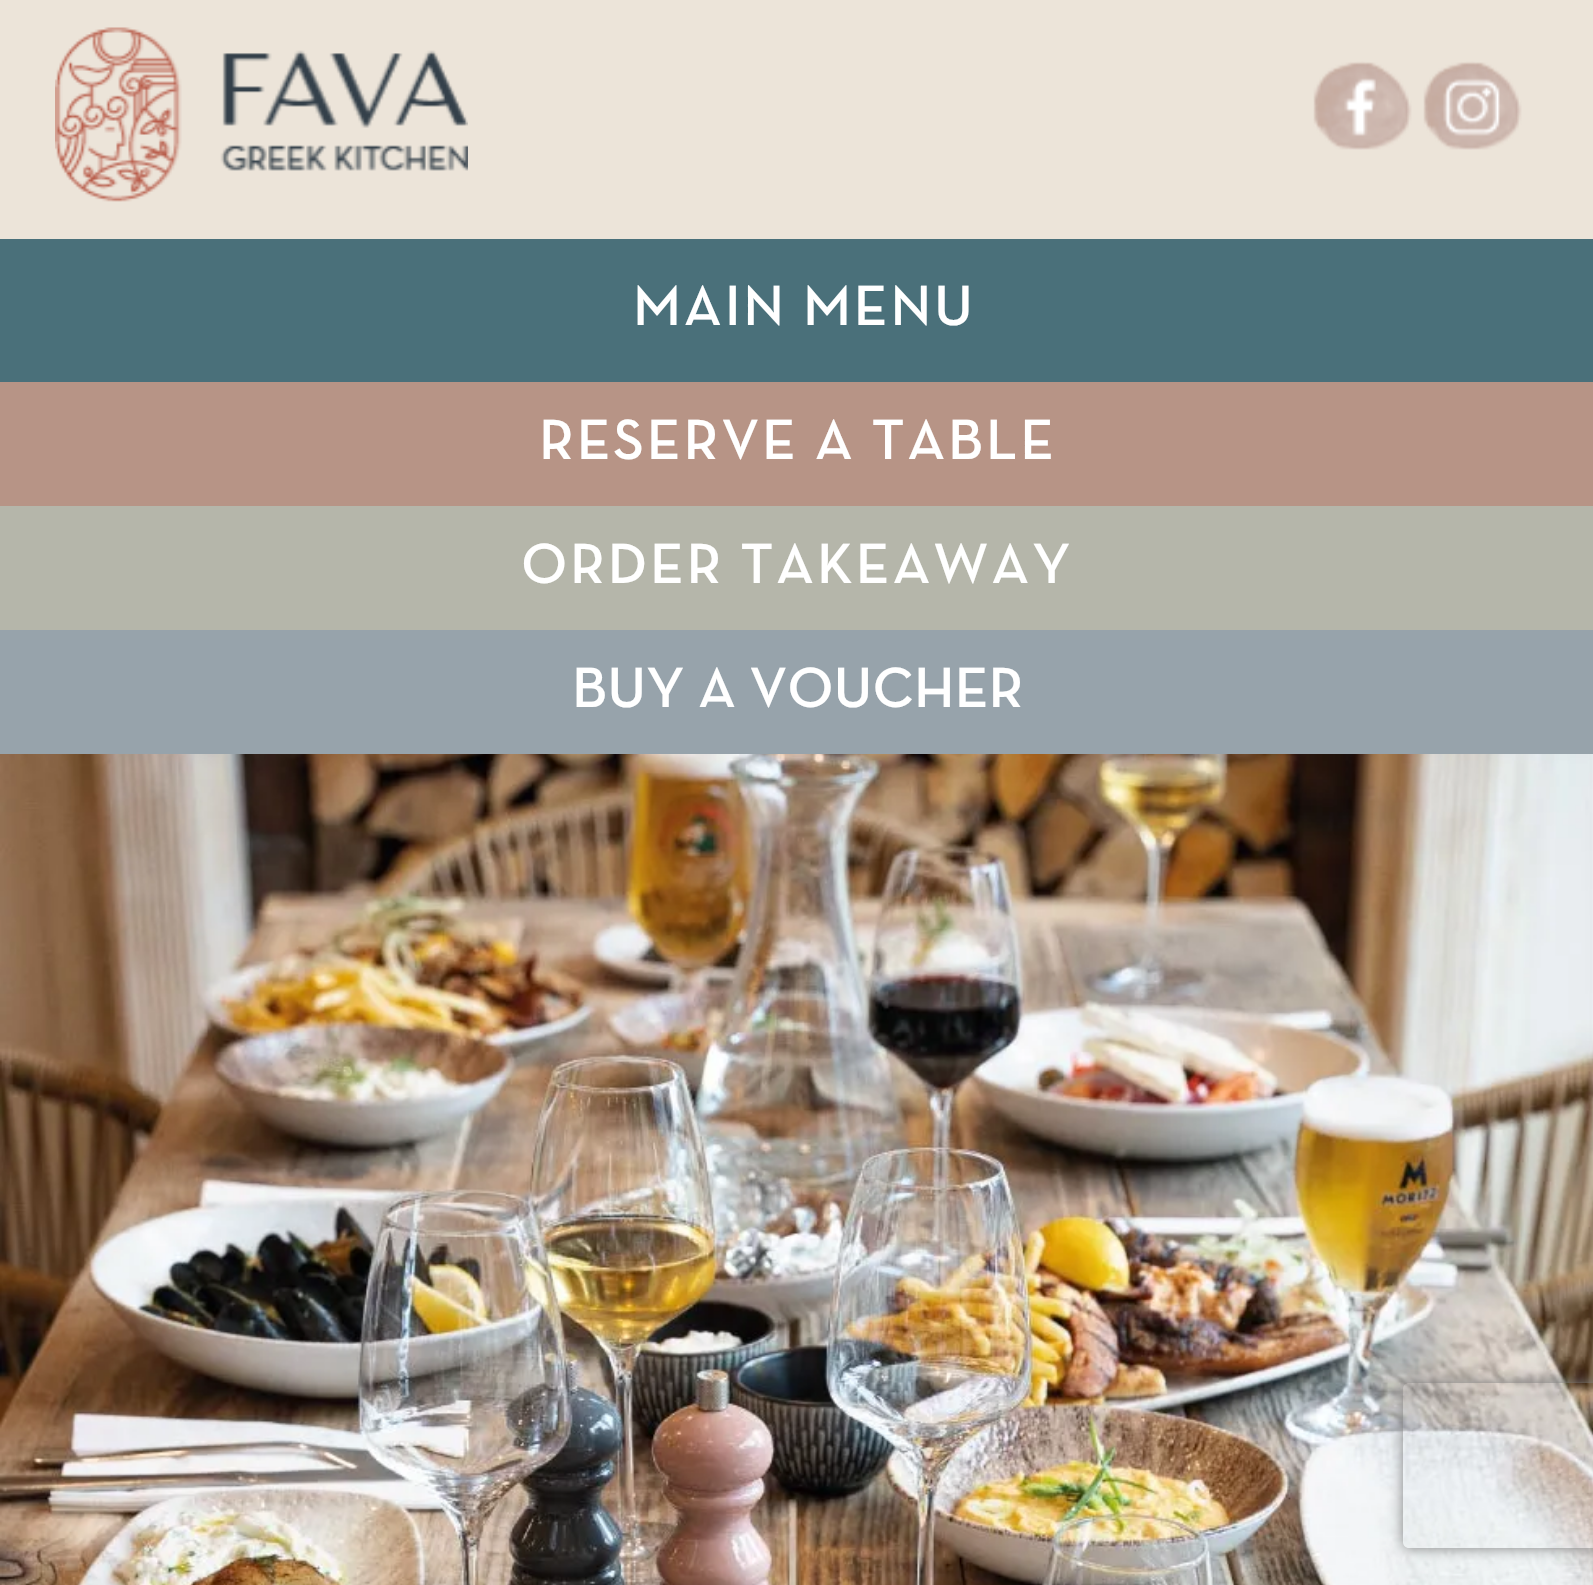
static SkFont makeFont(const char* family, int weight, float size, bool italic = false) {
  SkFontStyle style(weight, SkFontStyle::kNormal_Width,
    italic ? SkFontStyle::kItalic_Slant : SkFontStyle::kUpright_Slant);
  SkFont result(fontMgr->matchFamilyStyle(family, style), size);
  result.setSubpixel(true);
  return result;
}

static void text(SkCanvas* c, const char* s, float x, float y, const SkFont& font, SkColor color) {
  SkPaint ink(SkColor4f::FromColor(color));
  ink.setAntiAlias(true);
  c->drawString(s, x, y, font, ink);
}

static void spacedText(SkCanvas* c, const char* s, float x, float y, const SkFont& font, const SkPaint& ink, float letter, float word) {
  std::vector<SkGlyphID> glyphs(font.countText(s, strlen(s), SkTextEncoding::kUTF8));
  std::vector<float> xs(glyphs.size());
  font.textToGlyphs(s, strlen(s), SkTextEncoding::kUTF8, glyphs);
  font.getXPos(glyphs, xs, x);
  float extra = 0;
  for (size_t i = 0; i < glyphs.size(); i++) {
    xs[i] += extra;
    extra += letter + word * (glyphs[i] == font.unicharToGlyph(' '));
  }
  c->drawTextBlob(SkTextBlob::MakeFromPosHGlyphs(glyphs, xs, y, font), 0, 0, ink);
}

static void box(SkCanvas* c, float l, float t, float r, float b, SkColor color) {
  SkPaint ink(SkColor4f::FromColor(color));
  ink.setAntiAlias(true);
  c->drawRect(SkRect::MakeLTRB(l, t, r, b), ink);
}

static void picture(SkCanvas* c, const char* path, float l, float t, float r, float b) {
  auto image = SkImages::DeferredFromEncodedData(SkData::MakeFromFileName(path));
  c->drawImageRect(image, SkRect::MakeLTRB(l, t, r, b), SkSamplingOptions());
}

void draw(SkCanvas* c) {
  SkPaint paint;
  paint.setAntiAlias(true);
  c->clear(0xffffffff);
  box(c, 0, 0, 1593, 239, 0xffece4d9);
  picture(c, "img_01.png", 55, 27, 468, 202);
  picture(c, "img_02.png", 1313, 61, 1412, 150);
  picture(c, "img_03.png", 1423, 61, 1522, 150);
  box(c, 0, 239, 1593, 382, 0xff4a707a);
  SkFont face1 = makeFont("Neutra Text", 500, 57.75f);
  paint.setColor(0xffffffff);
  spacedText(c, "MAIN MENU", 633, 325, face1, paint, 2.75f, 0);
  box(c, 0, 382, 1593, 506, 0xffb79486);
  spacedText(c, "RESERVE A TABLE", 539, 459, face1, paint, 2.75f, 0);
  box(c, 0, 506, 1593, 630, 0xffb5b6aa);
  spacedText(c, "ORDER TAKEAWAY", 521, 583, face1, paint, 2.75f, 0);
  box(c, 0, 630, 1593, 754, 0xff97a3ab);
  text(c, "BUY A VOUCHER", 572, 707, face1, 0xffffffff);
  picture(c, "img_04.png", 0, 754, 1593, 1585);
  c->save();
  c->clipPath(SkPathBuilder(SkPathFillType::kEvenOdd).moveTo(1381, 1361).lineTo(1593, 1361).lineTo(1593, 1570).lineTo(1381, 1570).close().moveTo(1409, 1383).lineTo(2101, 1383).cubicTo(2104.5f, 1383, 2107, 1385.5f, 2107, 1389).lineTo(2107, 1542).cubicTo(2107, 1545.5f, 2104.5f, 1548, 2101, 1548).lineTo(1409, 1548).cubicTo(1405.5f, 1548, 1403, 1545.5f, 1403, 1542).lineTo(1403, 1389).cubicTo(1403, 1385.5f, 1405.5f, 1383, 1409, 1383).close().detach(), true);
  paint.setColor(0xff808080);
  paint.setMaskFilter(SkMaskFilter::MakeBlur(kNormal_SkBlurStyle, 7));
  c->drawRoundRect(SkRect::MakeLTRB(1403, 1383, 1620, 1548), 6, 6, paint);
  paint.setMaskFilter(nullptr);
  c->restore();
}
